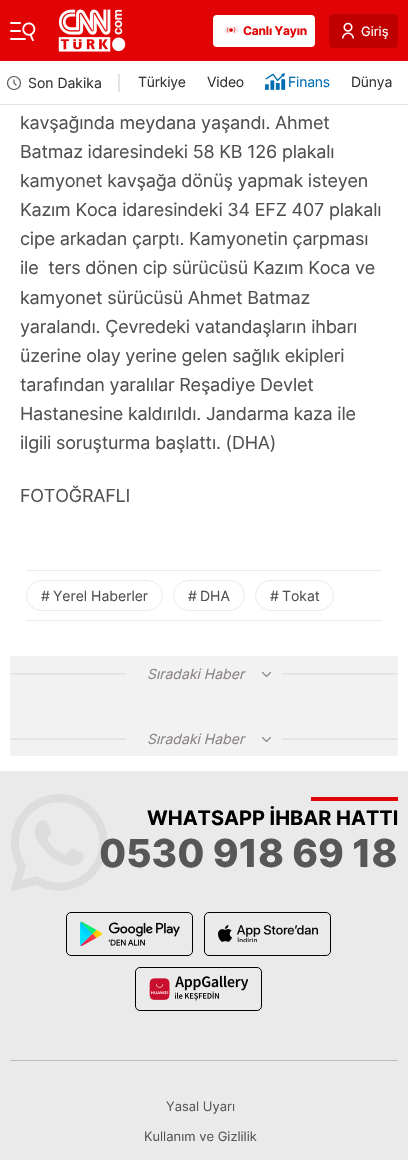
static SkFont makeFont(const char* family, int weight, float size, bool italic = false) {
  SkFontStyle style(weight, SkFontStyle::kNormal_Width,
    italic ? SkFontStyle::kItalic_Slant : SkFontStyle::kUpright_Slant);
  SkFont result(fontMgr->matchFamilyStyle(family, style), size);
  result.setSubpixel(true);
  return result;
}

static void text(SkCanvas* c, const char* s, float x, float y, const SkFont& font, SkColor color) {
  SkPaint ink(SkColor4f::FromColor(color));
  ink.setAntiAlias(true);
  c->drawString(s, x, y, font, ink);
}

static void spacedText(SkCanvas* c, const char* s, float x, float y, const SkFont& font, const SkPaint& ink, float letter, float word) {
  std::vector<SkGlyphID> glyphs(font.countText(s, strlen(s), SkTextEncoding::kUTF8));
  std::vector<float> xs(glyphs.size());
  font.textToGlyphs(s, strlen(s), SkTextEncoding::kUTF8, glyphs);
  font.getXPos(glyphs, xs, x);
  float extra = 0;
  for (size_t i = 0; i < glyphs.size(); i++) {
    xs[i] += extra;
    extra += letter + word * (glyphs[i] == font.unicharToGlyph(' '));
  }
  c->drawTextBlob(SkTextBlob::MakeFromPosHGlyphs(glyphs, xs, y, font), 0, 0, ink);
}

static void box(SkCanvas* c, float l, float t, float r, float b, SkColor color) {
  SkPaint ink(SkColor4f::FromColor(color));
  ink.setAntiAlias(true);
  c->drawRect(SkRect::MakeLTRB(l, t, r, b), ink);
}

static void roundBox(SkCanvas* c, float l, float t, float r, float b, float radius, SkColor color) {
  SkPaint ink(SkColor4f::FromColor(color));
  ink.setAntiAlias(true);
  c->drawRoundRect(SkRect::MakeLTRB(l, t, r, b), radius, radius, ink);
}

static void picture(SkCanvas* c, const char* path, float l, float t, float r, float b) {
  auto image = SkImages::DeferredFromEncodedData(SkData::MakeFromFileName(path));
  c->drawImageRect(image, SkRect::MakeLTRB(l, t, r, b), SkSamplingOptions());
}

void draw(SkCanvas* c) {
  SkPaint paint;
  paint.setAntiAlias(true);
  c->clear(0xffffffff);
  box(c, 0, 0, 408, 61, 0xffe20404);
  roundBox(c, 10, 30, 21, 32, 1, 0xffffffff);
  roundBox(c, 10, 22, 21, 24, 1, 0xffffffff);
  roundBox(c, 10, 38, 26, 40, 1, 0xffffffff);
  picture(c, "img_01.png", 22, 22, 36, 41);
  picture(c, "img_02.png", 58, 9, 126, 52);
  paint.setColor(0xffffffff);
  c->drawRoundRect(SkRect::MakeLTRB(214, 16, 314, 46), 3, 3, paint);
  paint.setStyle(SkPaint::kStroke_Style);
  paint.setStrokeWidth(2);
  c->drawRoundRect(SkRect::MakeLTRB(214, 16, 314, 46), 3, 3, paint);
  picture(c, "img_03.png", 224, 25, 238, 35);
  SkFont face1 = makeFont("Inter", 700, 12);
  paint.setStyle(SkPaint::kFill_Style);
  paint.setColor(0xffe20404);
  spacedText(c, "Canlı Yayın", 243, 35, face1, paint, -0.2f, 0);
  roundBox(c, 329, 14, 398, 48, 4, 0xffc00000);
  picture(c, "img_04.png", 342, 22, 354, 39);
  SkFont face2 = makeFont("Inter", 400, 13);
  text(c, "Giriş", 361, 36, face2, 0xffffffff);
  box(c, 0, 104, 408, 105, 0xffe2e2e2);
  paint.setStyle(SkPaint::kStroke_Style);
  paint.setStrokeWidth(1.2f);
  paint.setColor(0xff575757);
  c->drawCircle(14, 83, 6.5f, paint);
  paint.setStrokeCap(SkPaint::kSquare_Cap);
  c->drawPath(SkPathBuilder().moveTo(14, 80).lineTo(14, 83).lineTo(16, 85).detach(), paint);
  SkFont face3 = makeFont("Inter", 400, 14);
  text(c, "Son Dakika", 28, 88, face3, 0xff333333);
  box(c, 118, 74, 120, 92, 0xffe2e2e2);
  paint.setStyle(SkPaint::kFill_Style);
  paint.setColor(0xff333333);
  spacedText(c, "Türkiye", 138, 87, face3, paint, -0.2f, 0);
  spacedText(c, "Video", 207, 87, face3, paint, -0.2f, 0);
  picture(c, "img_05.png", 265, 73, 286, 90);
  paint.setColor(0xff006db2);
  spacedText(c, "Finans", 288, 87, face3, paint, -0.2f, 0);
  paint.setColor(0xff333333);
  spacedText(c, "Dünya", 351, 87, face3, paint, -0.2f, 0);
  SkFont face4 = makeFont("Inter", 400, 18);
  paint.setColor(0xff505050);
  spacedText(c, "kavşağında meydana yaşandı. Ahmet", 20, 129, face4, paint, -0.2f, 0);
  spacedText(c, "Batmaz idaresindeki 58 KB 126 plakalı", 20, 158, face4, paint, -0.2f, 0);
  spacedText(c, "kamyonet kavşağa dönüş yapmak isteyen", 20, 187, face4, paint, -0.2f, 0);
  spacedText(c, "Kazım Koca idaresindeki 34 EFZ 407 plakalı", 20, 216, face4, paint, -0.2f, 0);
  spacedText(c, "cipe arkadan çarptı. Kamyonetin çarpması", 20, 245, face4, paint, -0.2f, 0);
  spacedText(c, "ile  ters dönen cip sürücüsü Kazım Koca ve", 20, 274, face4, paint, -0.2f, 0);
  spacedText(c, "kamyonet sürücüsü Ahmet Batmaz", 20, 304, face4, paint, -0.2f, 0);
  spacedText(c, "yaralandı. Çevredeki vatandaşların ihbarı", 20, 333, face4, paint, -0.2f, 0);
  spacedText(c, "üzerine olay yerine gelen sağlık ekipleri", 20, 362, face4, paint, -0.2f, 0);
  spacedText(c, "tarafından yaralılar Reşadiye Devlet", 20, 391, face4, paint, -0.2f, 0);
  spacedText(c, "Hastanesine kaldırıldı. Jandarma kaza ile", 20, 420, face4, paint, -0.2f, 0);
  spacedText(c, "ilgili soruşturma başlattı. (DHA)", 20, 449, face4, paint, -0.2f, 0);
  spacedText(c, "FOTOĞRAFLI", 20, 502, face4, paint, -0.2f, 0);
  box(c, 26, 570, 382, 571, 0xffeaeaea);
  box(c, 26, 620, 382, 621, 0xffeaeaea);
  paint.setStyle(SkPaint::kStroke_Style);
  paint.setStrokeWidth(1);
  paint.setStrokeCap(SkPaint::kButt_Cap);
  paint.setColor(0xffeaeaea);
  c->drawRoundRect(SkRect::MakeLTRB(26.5f, 580.5f, 162.5f, 610.5f), 15, 15, paint);
  text(c, "#", 41, 601, face3, 0xff505050);
  text(c, "Yerel Haberler", 53, 601, face3, 0xff505050);
  c->drawRoundRect(SkRect::MakeLTRB(173.5f, 580.5f, 244.5f, 610.5f), 15, 15, paint);
  text(c, "#", 188, 601, face3, 0xff505050);
  text(c, "DHA", 200, 601, face3, 0xff505050);
  c->drawRoundRect(SkRect::MakeLTRB(255.5f, 580.5f, 333.5f, 610.5f), 15, 15, paint);
  text(c, "#", 270, 601, face3, 0xff505050);
  text(c, "Tokat", 282, 601, face3, 0xff505050);
  box(c, 10, 656, 398, 756, 0xfff2f2f2);
  box(c, 10, 673, 126, 675, 0xffe5e5e5);
  SkFont face5 = makeFont("Inter", 400, 14, true);
  text(c, "Sıradaki Haber", 147, 679, face5, 0xff898383);
  paint.setStrokeWidth(1.1f);
  paint.setStrokeCap(SkPaint::kRound_Cap);
  paint.setStrokeJoin(SkPaint::kRound_Join);
  paint.setColor(0xff898383);
  c->drawPath(SkPathBuilder().moveTo(270.5f, 672.5f).lineTo(266.5f, 676.5f).lineTo(262.5f, 672.5f).detach(), paint);
  box(c, 282, 673, 398, 675, 0xffe5e5e5);
  box(c, 10, 738, 126, 740, 0xffe5e5e5);
  text(c, "Sıradaki Haber", 147, 744, face5, 0xff898383);
  c->drawPath(SkPathBuilder().moveTo(270.5f, 737.5f).lineTo(266.5f, 741.5f).lineTo(262.5f, 737.5f).detach(), paint);
  box(c, 282, 738, 398, 740, 0xffe5e5e5);
  box(c, 0, 771, 408, 1160, 0xffeaeaea);
  box(c, 311, 797, 398, 801, 0xffe20404);
  SkFont face6 = makeFont("Inter", 700, 20);
  text(c, "WHATSAPP İHBAR HATTI", 147, 825, face6, 0xff000000);
  picture(c, "img_06.png", 11, 794, 108, 892);
  SkFont face7 = makeFont("Inter", 800, 38.5f);
  text(c, "0530 918 69 18", 99, 867, face7, 0xff575757);
  paint.setStrokeWidth(1);
  paint.setStrokeCap(SkPaint::kButt_Cap);
  paint.setStrokeJoin(SkPaint::kMiter_Join);
  paint.setColor(0xff000000);
  c->drawRoundRect(SkRect::MakeLTRB(66.5f, 912.5f, 192.5f, 955.5f), 4.5f, 4.5f, paint);
  picture(c, "img_07.png", 80, 921, 180, 946);
  c->drawRoundRect(SkRect::MakeLTRB(204.5f, 912.5f, 330.5f, 955.5f), 4.5f, 4.5f, paint);
  picture(c, "img_08.png", 218, 925, 318, 942);
  c->drawRoundRect(SkRect::MakeLTRB(135.5f, 967.5f, 261.5f, 1010.5f), 4.5f, 4.5f, paint);
  picture(c, "img_09.png", 149, 975, 249, 1001);
  box(c, 10, 1060, 398, 1061, 0xffbebebe);
  text(c, "Yasal Uyarı", 166, 1111, face2, 0xff575757);
  text(c, "Kullanım ve Gizlilik", 144, 1141, face2, 0xff575757);
}
